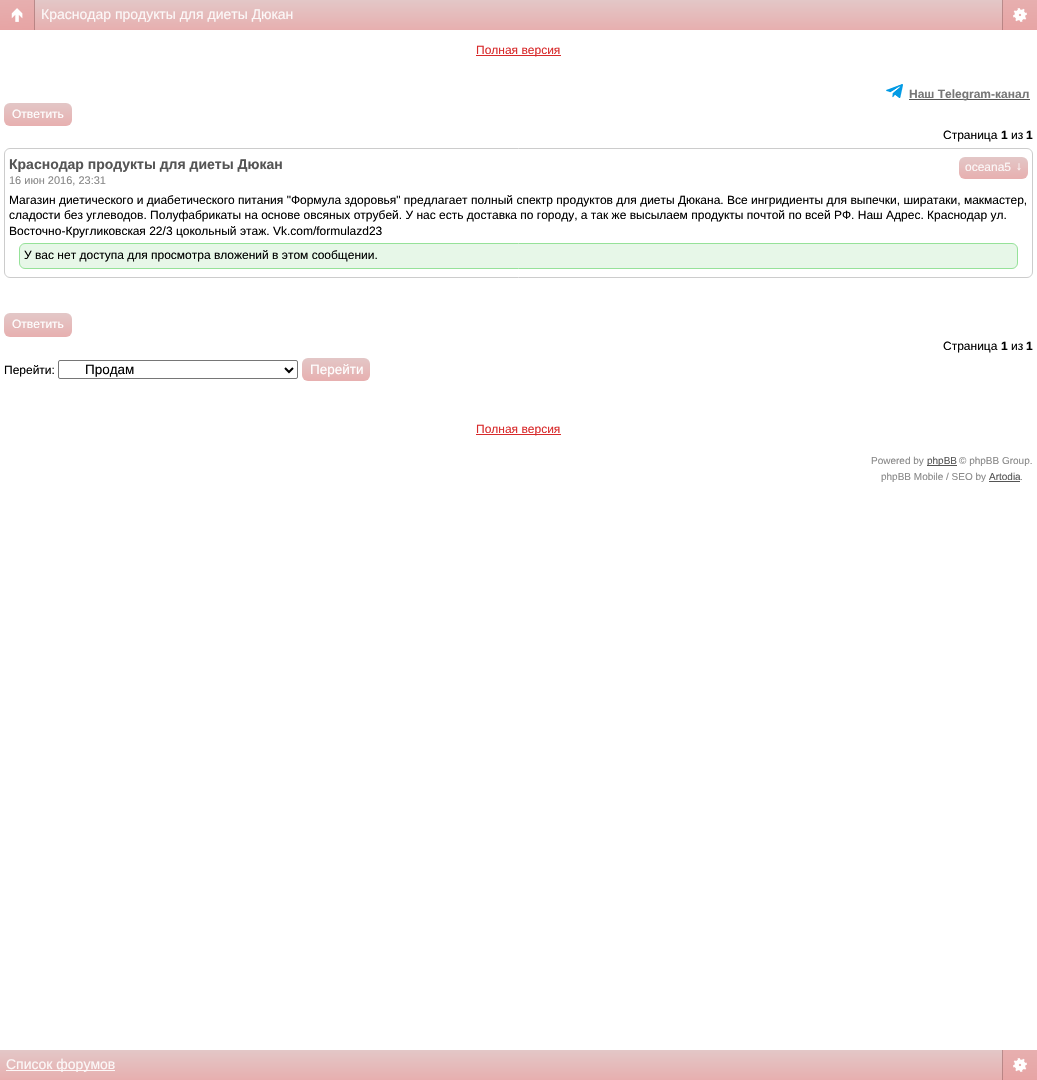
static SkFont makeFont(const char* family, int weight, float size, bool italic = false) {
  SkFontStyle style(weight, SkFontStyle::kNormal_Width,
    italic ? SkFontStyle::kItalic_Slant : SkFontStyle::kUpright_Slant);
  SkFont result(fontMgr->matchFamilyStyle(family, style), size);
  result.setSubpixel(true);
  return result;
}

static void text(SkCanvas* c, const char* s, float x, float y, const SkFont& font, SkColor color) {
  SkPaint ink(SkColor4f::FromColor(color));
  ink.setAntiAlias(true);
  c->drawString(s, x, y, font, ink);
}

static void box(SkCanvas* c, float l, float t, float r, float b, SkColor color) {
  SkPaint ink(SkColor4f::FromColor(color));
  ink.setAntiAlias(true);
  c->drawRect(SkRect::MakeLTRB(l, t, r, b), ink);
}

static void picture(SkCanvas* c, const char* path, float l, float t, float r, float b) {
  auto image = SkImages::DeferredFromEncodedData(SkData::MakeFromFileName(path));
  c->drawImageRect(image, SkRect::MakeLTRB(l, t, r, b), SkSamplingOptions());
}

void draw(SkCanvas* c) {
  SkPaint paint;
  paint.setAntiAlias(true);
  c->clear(0xffffffff);
  {
    const SkColor colors[] = {0xffe3c7c7, 0xffe7afaf};
    const float stops[] = {0, 1};
    const SkPoint ends[] = {{519, 0}, {519, 30}};
    paint.setShader(SkGradientShader::MakeLinear(ends, colors, stops, 2, SkTileMode::kClamp));
    paint.setAlpha(255);
  }
  c->drawRect(SkRect::MakeLTRB(35, 0, 1002, 30), paint);
  {
    const SkColor colors[] = {0xffe7afaf, 0xffe7a4a4};
    const float stops[] = {0, 1};
    const SkPoint ends[] = {{17, 0}, {18, 30}};
    paint.setShader(SkGradientShader::MakeLinear(ends, colors, stops, 2, SkTileMode::kClamp));
    paint.setAlpha(255);
  }
  c->drawRect(SkRect::MakeLTRB(0, 0, 34, 30), paint);
  {
    const SkColor colors[] = {0xffb98c8c, 0xffb98383};
    const float stops[] = {0, 1};
    const SkPoint ends[] = {{17, 0}, {18, 30}};
    paint.setShader(SkGradientShader::MakeLinear(ends, colors, stops, 2, SkTileMode::kClamp));
    paint.setAlpha(255);
  }
  c->drawRect(SkRect::MakeLTRB(34, 0, 35, 30), paint);
  picture(c, "img_01.png", 11, 8, 23, 22);
  SkFont face1 = makeFont("Liberation Sans", 400, 14);
  text(c, "Краснодар продукты для диеты Дюкан", 41, 19, face1, 0xfffcf8f8);
  {
    const SkColor colors[] = {0xffe7afaf, 0xffe7a4a4};
    const float stops[] = {0, 1};
    const SkPoint ends[] = {{1020, 0}, {1020, 30}};
    paint.setShader(SkGradientShader::MakeLinear(ends, colors, stops, 2, SkTileMode::kClamp));
    paint.setAlpha(255);
  }
  c->drawRect(SkRect::MakeLTRB(1003, 0, 1037, 30), paint);
  {
    const SkColor colors[] = {0xffb98c8c, 0xffb98383};
    const float stops[] = {0, 1};
    const SkPoint ends[] = {{1020, 0}, {1020, 30}};
    paint.setShader(SkGradientShader::MakeLinear(ends, colors, stops, 2, SkTileMode::kClamp));
    paint.setAlpha(255);
  }
  c->drawRect(SkRect::MakeLTRB(1002, 0, 1003, 30), paint);
  picture(c, "img_02.png", 1013, 8, 1027, 22);
  box(c, 476, 55, 561, 56, 0xffd82a2b);
  SkFont face2 = makeFont("Liberation Sans", 400, 12);
  text(c, "Полная версия", 476, 54, face2, 0xffd82a2b);
  picture(c, "img_03.png", 886, 84, 903, 98);
  box(c, 909, 99, 1030, 100, 0xff555555);
  SkFont face3 = makeFont("Liberation Sans", 700, 12);
  text(c, "Наш Telegram-канал", 909, 98, face3, 0xff777777);
  {
    const SkColor colors[] = {0xffe3c7c7, 0xffe7afaf};
    const float stops[] = {0, 1};
    const SkPoint ends[] = {{38, 103}, {38, 126}};
    paint.setShader(SkGradientShader::MakeLinear(ends, colors, stops, 2, SkTileMode::kClamp));
    paint.setAlpha(255);
  }
  c->drawRoundRect(SkRect::MakeLTRB(4, 103, 72, 126), 6, 6, paint);
  text(c, "Ответить", 12, 118, face2, 0xffffffff);
  text(c, "Страница", 943, 139, face2, 0xff000000);
  text(c, "1", 1001, 139, face3, 0xff000000);
  text(c, "из", 1011, 139, face2, 0xff000000);
  text(c, "1", 1026, 139, face3, 0xff000000);
  paint.setStyle(SkPaint::kStroke_Style);
  paint.setStrokeWidth(1);
  paint.setShader(nullptr);
  paint.setColor(0xffcccccc);
  c->drawRoundRect(SkRect::MakeLTRB(4.5f, 148.5f, 1032.5f, 277.5f), 5.5f, 5.5f, paint);
  SkFont face4 = makeFont("Liberation Sans", 700, 14);
  text(c, "Краснодар продукты для диеты Дюкан", 9, 169, face4, 0xff555555);
  paint.setStyle(SkPaint::kFill_Style);
  {
    const SkColor colors[] = {0xffe3c7c7, 0xffe7afaf};
    const float stops[] = {0, 1};
    const SkPoint ends[] = {{994, 157}, {994, 179}};
    paint.setShader(SkGradientShader::MakeLinear(ends, colors, stops, 2, SkTileMode::kClamp));
    paint.setAlpha(255);
  }
  c->drawRoundRect(SkRect::MakeLTRB(959, 157, 1028, 179), 6, 6, paint);
  text(c, "oceana5", 965, 171, face2, 0xfffcf8f8);
  text(c, "↓", 1016, 170, face2, 0xfffcf8f8);
  SkFont face5 = makeFont("Liberation Sans", 400, 11);
  text(c, "16 июн 2016, 23:31", 9, 184, face5, 0xff888888);
  text(c, "Магазин диетического и диабетического питания \"Формула здоровья\" предлагает полный спектр продуктов для диеты Дюкана. Все ингридиенты для выпечки, ширатаки, макмастер,", 9, 204, face2, 0xff000000);
  text(c, "сладости без углеводов. Полуфабрикаты на основе овсяных отрубей. У нас есть доставка по городу, а так же высылаем продукты почтой по всей РФ. Наш Адрес. Краснодар ул.", 9, 219, face2, 0xff000000);
  text(c, "Восточно-Кругликовская 22/3 цокольный этаж. Vk.com/formulazd23", 9, 235, face2, 0xff000000);
  paint.setShader(nullptr);
  paint.setColor(0xffe7f7e8);
  c->drawRoundRect(SkRect::MakeLTRB(19.5f, 243.5f, 1017.5f, 268.5f), 5.5f, 5.5f, paint);
  paint.setStyle(SkPaint::kStroke_Style);
  paint.setColor(0xff96e299);
  c->drawRoundRect(SkRect::MakeLTRB(19.5f, 243.5f, 1017.5f, 268.5f), 5.5f, 5.5f, paint);
  text(c, "У вас нет доступа для просмотра вложений в этом сообщении.", 24, 259, face2, 0xff000000);
  paint.setStyle(SkPaint::kFill_Style);
  {
    const SkColor colors[] = {0xffe3c7c7, 0xffe7afaf};
    const float stops[] = {0, 1};
    const SkPoint ends[] = {{38, 313}, {38, 337}};
    paint.setShader(SkGradientShader::MakeLinear(ends, colors, stops, 2, SkTileMode::kClamp));
    paint.setAlpha(255);
  }
  c->drawRoundRect(SkRect::MakeLTRB(4, 313, 72, 337), 6, 6, paint);
  text(c, "Ответить", 12, 328, face2, 0xffffffff);
  text(c, "Страница", 943, 350, face2, 0xff000000);
  text(c, "1", 1001, 350, face3, 0xff000000);
  text(c, "из", 1011, 350, face2, 0xff000000);
  text(c, "1", 1026, 350, face3, 0xff000000);
  text(c, "Перейти:", 4, 374, face2, 0xff000000);
  paint.setStyle(SkPaint::kStroke_Style);
  paint.setShader(nullptr);
  paint.setColor(0xff767676);
  c->drawRoundRect(SkRect::MakeLTRB(58.5f, 360.5f, 297.5f, 378.5f), 1.5f, 1.5f, paint);
  paint.setStrokeWidth(2);
  paint.setColor(0xff000000);
  c->drawPath(SkPathBuilder().moveTo(285, 368).lineTo(289, 372).lineTo(293, 368).detach(), paint);
  SkFont face6 = makeFont("Liberation Sans", 400, 13.5f);
  text(c, "Продам", 85, 374, face6, 0xff000000);
  paint.setStyle(SkPaint::kFill_Style);
  {
    const SkColor colors[] = {0xffe3c7c7, 0xffe7afaf};
    const float stops[] = {0, 1};
    const SkPoint ends[] = {{336, 358}, {336, 381}};
    paint.setShader(SkGradientShader::MakeLinear(ends, colors, stops, 2, SkTileMode::kClamp));
    paint.setAlpha(255);
  }
  c->drawRoundRect(SkRect::MakeLTRB(302, 358, 370, 381), 6, 6, paint);
  text(c, "Перейти", 310, 374, face6, 0xffffffff);
  box(c, 476, 434, 561, 435, 0xffd82a2b);
  text(c, "Полная версия", 476, 433, face2, 0xffd82a2b);
  SkFont face7 = makeFont("Liberation Sans", 400, 10);
  text(c, "Powered by", 871, 464, face7, 0xff888888);
  box(c, 927, 465, 957, 466, 0xff555555);
  text(c, "phpBB", 927, 464, face7, 0xff555555);
  text(c, "© phpBB Group.", 959, 464, face7, 0xff888888);
  text(c, "phpBB Mobile / SEO by", 881, 480, face7, 0xff888888);
  text(c, "Artodia", 989, 480, face7, 0xff555555);
  box(c, 989, 481, 1020, 482, 0xff555555);
  text(c, ".", 1020, 480, face7, 0xff888888);
  {
    const SkColor colors[] = {0xffe3c7c7, 0xffe7afaf};
    const float stops[] = {0, 1};
    const SkPoint ends[] = {{519, 1050}, {519, 1080}};
    paint.setShader(SkGradientShader::MakeLinear(ends, colors, stops, 2, SkTileMode::kClamp));
    paint.setAlpha(255);
  }
  c->drawRect(SkRect::MakeLTRB(0, 1050, 1002, 1080), paint);
  box(c, 6, 1070, 115, 1071, 0xfffdf8f8);
  text(c, "Список форумов", 6, 1069, face1, 0xfffcf8f8);
  {
    const SkColor colors[] = {0xffe7afaf, 0xffe7a4a4};
    const float stops[] = {0, 1};
    const SkPoint ends[] = {{1020, 1050}, {1020, 1080}};
    paint.setShader(SkGradientShader::MakeLinear(ends, colors, stops, 2, SkTileMode::kClamp));
    paint.setAlpha(255);
  }
  c->drawRect(SkRect::MakeLTRB(1003, 1050, 1037, 1080), paint);
  {
    const SkColor colors[] = {0xffb98c8c, 0xffb98383};
    const float stops[] = {0, 1};
    const SkPoint ends[] = {{1020, 1050}, {1020, 1080}};
    paint.setShader(SkGradientShader::MakeLinear(ends, colors, stops, 2, SkTileMode::kClamp));
    paint.setAlpha(255);
  }
  c->drawRect(SkRect::MakeLTRB(1002, 1050, 1003, 1080), paint);
  picture(c, "img_02.png", 1013, 1058, 1027, 1072);
}
